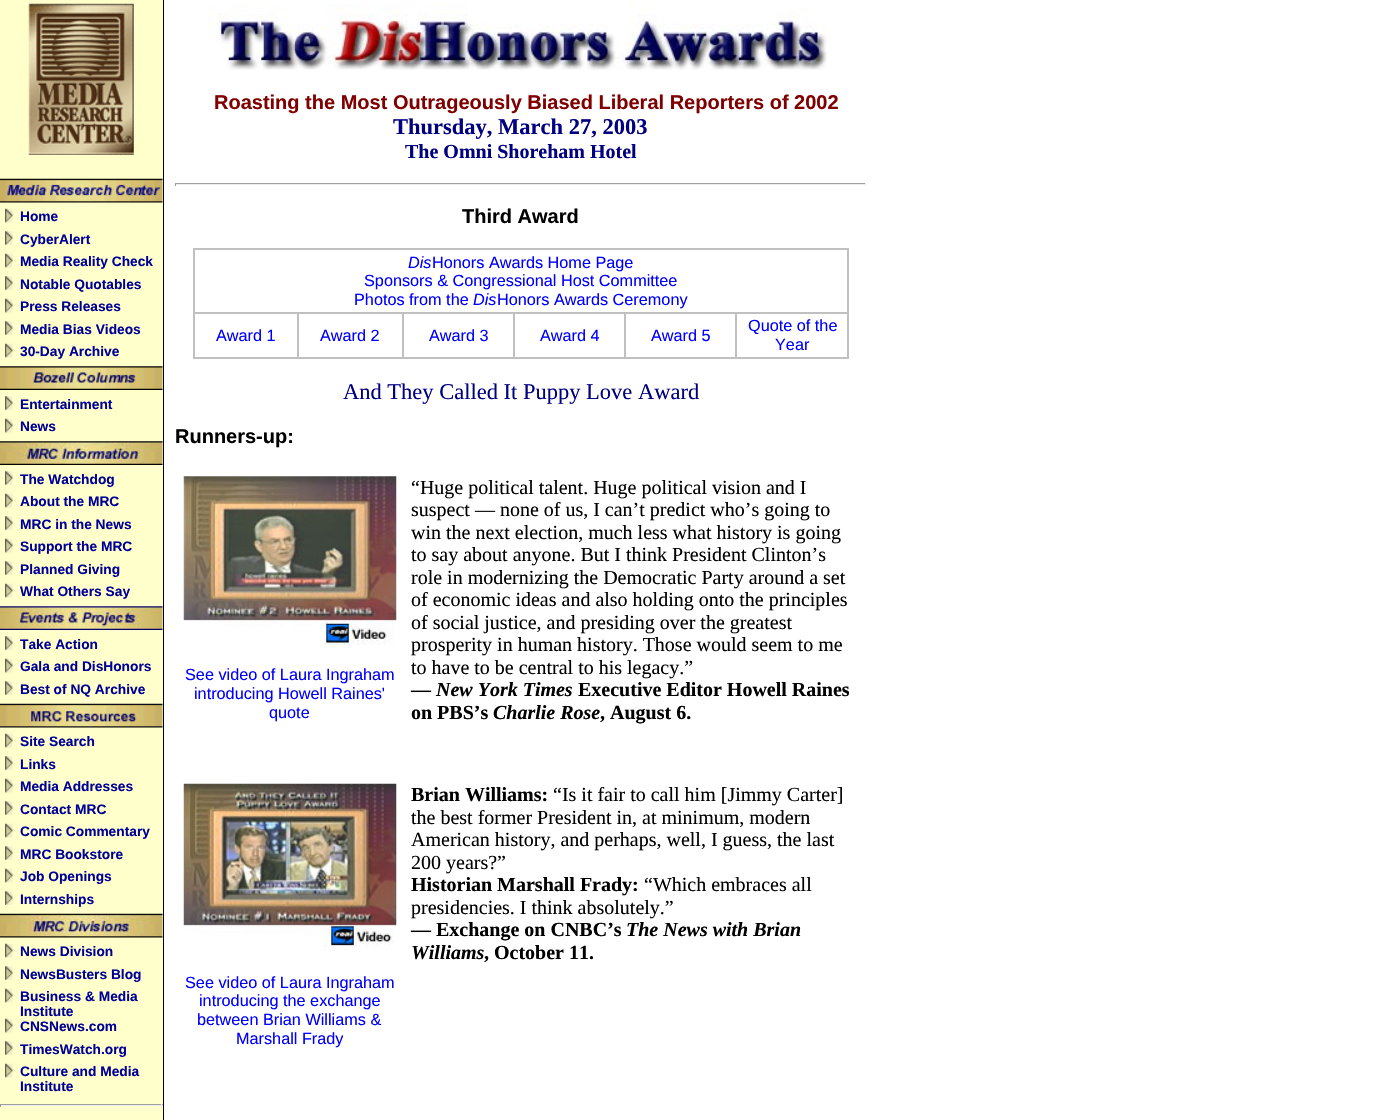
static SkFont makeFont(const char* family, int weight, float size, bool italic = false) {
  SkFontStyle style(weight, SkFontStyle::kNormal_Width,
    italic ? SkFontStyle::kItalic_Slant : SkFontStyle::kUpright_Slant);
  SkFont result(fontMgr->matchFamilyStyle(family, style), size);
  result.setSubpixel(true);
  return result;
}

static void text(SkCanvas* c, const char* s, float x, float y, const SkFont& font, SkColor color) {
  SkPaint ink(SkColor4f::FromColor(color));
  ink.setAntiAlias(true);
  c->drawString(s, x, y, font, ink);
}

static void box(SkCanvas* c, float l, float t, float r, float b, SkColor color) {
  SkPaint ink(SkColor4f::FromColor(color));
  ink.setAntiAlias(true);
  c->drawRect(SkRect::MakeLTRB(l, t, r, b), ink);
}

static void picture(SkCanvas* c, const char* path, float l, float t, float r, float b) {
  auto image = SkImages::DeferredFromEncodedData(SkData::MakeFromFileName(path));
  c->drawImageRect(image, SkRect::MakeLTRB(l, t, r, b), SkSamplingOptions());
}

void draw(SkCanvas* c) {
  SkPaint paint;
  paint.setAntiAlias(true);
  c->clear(0xffffffff);
  box(c, 0, 0, 163, 1120, 0xffffffcc);
  picture(c, "img_01.png", 28, 3, 134, 155);
  picture(c, "img_02.png", 0, 178, 163, 203);
  picture(c, "img_03.png", 5, 208, 13, 223);
  SkFont face1 = makeFont("Liberation Sans", 700, 13.75f);
  text(c, "Home", 20, 221, face1, 0xff000099);
  picture(c, "img_04.png", 5, 231, 13, 245);
  text(c, "CyberAlert", 20, 244, face1, 0xff000099);
  picture(c, "img_03.png", 5, 253, 13, 268);
  text(c, "Media Reality Check", 20, 266, face1, 0xff000099);
  picture(c, "img_04.png", 5, 276, 13, 290);
  text(c, "Notable Quotables", 20, 289, face1, 0xff000099);
  picture(c, "img_03.png", 5, 298, 13, 313);
  text(c, "Press Releases", 20, 311, face1, 0xff000099);
  picture(c, "img_04.png", 5, 321, 13, 335);
  text(c, "Media Bias Videos", 20, 334, face1, 0xff000099);
  picture(c, "img_03.png", 5, 343, 13, 358);
  text(c, "30-Day Archive", 20, 356, face1, 0xff000099);
  picture(c, "img_05.png", 0, 366, 163, 390);
  picture(c, "img_04.png", 5, 396, 13, 410);
  text(c, "Entertainment", 20, 409, face1, 0xff000099);
  picture(c, "img_03.png", 5, 418, 13, 433);
  text(c, "News", 20, 431, face1, 0xff000099);
  picture(c, "img_06.png", 0, 441, 163, 465);
  picture(c, "img_04.png", 5, 471, 13, 485);
  text(c, "The Watchdog", 20, 484, face1, 0xff000099);
  picture(c, "img_03.png", 5, 493, 13, 508);
  text(c, "About the MRC", 20, 506, face1, 0xff000099);
  picture(c, "img_04.png", 5, 516, 13, 530);
  text(c, "MRC in the News", 20, 529, face1, 0xff000099);
  picture(c, "img_03.png", 5, 538, 13, 553);
  text(c, "Support the MRC", 20, 551, face1, 0xff000099);
  picture(c, "img_04.png", 5, 561, 13, 575);
  text(c, "Planned Giving", 20, 574, face1, 0xff000099);
  picture(c, "img_07.png", 5, 583, 13, 598);
  text(c, "What Others Say", 20, 596, face1, 0xff000099);
  picture(c, "img_08.png", 0, 606, 163, 630);
  picture(c, "img_04.png", 5, 636, 13, 650);
  text(c, "Take Action", 20, 649, face1, 0xff000099);
  picture(c, "img_03.png", 5, 658, 13, 673);
  text(c, "Gala and DisHonors", 20, 671, face1, 0xff000099);
  picture(c, "img_04.png", 5, 681, 13, 695);
  text(c, "Best of NQ Archive", 20, 694, face1, 0xff000099);
  picture(c, "img_09.png", 0, 703, 163, 728);
  picture(c, "img_03.png", 5, 733, 13, 748);
  text(c, "Site Search", 20, 746, face1, 0xff000099);
  picture(c, "img_04.png", 5, 756, 13, 770);
  text(c, "Links", 20, 769, face1, 0xff000099);
  picture(c, "img_10.png", 5, 778, 13, 793);
  text(c, "Media Addresses", 20, 791, face1, 0xff000099);
  picture(c, "img_04.png", 5, 801, 13, 815);
  text(c, "Contact MRC", 20, 814, face1, 0xff000099);
  picture(c, "img_03.png", 5, 823, 13, 838);
  text(c, "Comic Commentary", 20, 836, face1, 0xff000099);
  picture(c, "img_04.png", 5, 846, 13, 860);
  text(c, "MRC Bookstore", 20, 859, face1, 0xff000099);
  picture(c, "img_03.png", 5, 868, 13, 883);
  text(c, "Job Openings", 20, 881, face1, 0xff000099);
  picture(c, "img_04.png", 5, 891, 13, 905);
  text(c, "Internships", 20, 904, face1, 0xff000099);
  picture(c, "img_11.png", 0, 913, 163, 938);
  picture(c, "img_03.png", 5, 943, 13, 958);
  text(c, "News Division", 20, 956, face1, 0xff000099);
  picture(c, "img_04.png", 5, 966, 13, 980);
  text(c, "NewsBusters Blog", 20, 979, face1, 0xff000099);
  picture(c, "img_03.png", 5, 988, 13, 1003);
  text(c, "Business & Media", 20, 1001, face1, 0xff000099);
  text(c, "Institute", 20, 1016, face1, 0xff000099);
  picture(c, "img_03.png", 5, 1018, 13, 1033);
  text(c, "CNSNews.com", 20, 1031, face1, 0xff000099);
  picture(c, "img_04.png", 5, 1041, 13, 1055);
  text(c, "TimesWatch.org", 20, 1054, face1, 0xff000099);
  picture(c, "img_03.png", 5, 1063, 13, 1078);
  text(c, "Culture and Media", 20, 1076, face1, 0xff000099);
  text(c, "Institute", 20, 1091, face1, 0xff000099);
  box(c, 0, 1104, 163, 1105, 0xff9f9f9f);
  box(c, 161, 1104, 162, 1107, 0xffeeeeee);
  box(c, 0, 1105, 163, 1106, 0xffeeeeee);
  box(c, 0, 1104, 1, 1107, 0xff9f9f9f);
  box(c, 163, 0, 164, 1120, 0xff000000);
  picture(c, "img_12.png", 207, 4, 828, 70);
  SkFont face2 = makeFont("Liberation Sans", 700, 20);
  text(c, "Roasting the Most Outrageously Biased Liberal Reporters of 2002", 214, 109, face2, 0xff800000);
  SkFont face3 = makeFont("Liberation Serif", 700, 22.5f);
  text(c, "Thursday, March 27, 2003", 393, 134, face3, 0xff000080);
  SkFont face4 = makeFont("Liberation Serif", 700, 20);
  text(c, "The Omni Shoreham Hotel", 405, 158, face4, 0xff000080);
  box(c, 175, 183, 866, 184, 0xff9f9f9f);
  box(c, 865, 183, 866, 186, 0xffeeeeee);
  box(c, 175, 184, 866, 185, 0xffeeeeee);
  box(c, 175, 183, 176, 186, 0xff9f9f9f);
  text(c, "Third Award", 462, 223, face2, 0xff000000);
  paint.setStyle(SkPaint::kStroke_Style);
  paint.setStrokeWidth(1);
  paint.setColor(0xffc0c0c0);
  c->drawRect(SkRect::MakeLTRB(193.5f, 248.5f, 848.5f, 358.5f), paint);
  c->drawRect(SkRect::MakeLTRB(194.5f, 249.5f, 847.5f, 312.5f), paint);
  SkFont face5 = makeFont("Liberation Sans", 400, 16.25f, true);
  text(c, "Dis", 408, 268, face5, 0xff0000ff);
  SkFont face6 = makeFont("Liberation Sans", 400, 16.25f);
  text(c, "Honors Awards Home Page", 432, 268, face6, 0xff0000ff);
  text(c, "Sponsors & Congressional Host Committee", 364, 286, face6, 0xff0000ff);
  text(c, "Photos from the", 354, 305, face6, 0xff0000ff);
  text(c, "Dis", 473, 305, face5, 0xff0000ff);
  text(c, "Honors Awards Ceremony", 497, 305, face6, 0xff0000ff);
  c->drawRect(SkRect::MakeLTRB(194.5f, 313.5f, 297.5f, 357.5f), paint);
  text(c, "Award 1", 216, 341, face6, 0xff0000ff);
  c->drawRect(SkRect::MakeLTRB(298.5f, 313.5f, 402.5f, 357.5f), paint);
  text(c, "Award 2", 320, 341, face6, 0xff0000ff);
  c->drawRect(SkRect::MakeLTRB(403.5f, 313.5f, 513.5f, 357.5f), paint);
  text(c, "Award 3", 429, 341, face6, 0xff0000ff);
  c->drawRect(SkRect::MakeLTRB(514.5f, 313.5f, 624.5f, 357.5f), paint);
  text(c, "Award 4", 540, 341, face6, 0xff0000ff);
  c->drawRect(SkRect::MakeLTRB(625.5f, 313.5f, 735.5f, 357.5f), paint);
  text(c, "Award 5", 651, 341, face6, 0xff0000ff);
  c->drawRect(SkRect::MakeLTRB(736.5f, 313.5f, 847.5f, 357.5f), paint);
  text(c, "Quote of the", 748, 331, face6, 0xff0000ff);
  text(c, "Year", 775, 350, face6, 0xff0000ff);
  SkFont face7 = makeFont("Liberation Serif", 400, 22.5f);
  text(c, "And They Called It Puppy Love Award", 343, 399, face7, 0xff000080);
  text(c, "Runners-up:", 175, 443, face2, 0xff000000);
  picture(c, "img_13.png", 183, 476, 397, 645);
  text(c, "See video of Laura Ingraham", 185, 680, face6, 0xff0000ff);
  text(c, "introducing Howell Raines'", 194, 699, face6, 0xff0000ff);
  text(c, "quote", 269, 718, face6, 0xff0000ff);
  SkFont face8 = makeFont("Liberation Serif", 400, 20);
  text(c, "“Huge political talent. Huge political vision and I", 411, 494, face8, 0xff000000);
  text(c, "suspect — none of us, I can’t predict who’s going to", 411, 516, face8, 0xff000000);
  text(c, "win the next election, much less what history is going", 411, 539, face8, 0xff000000);
  text(c, "to say about anyone. But I think President Clinton’s", 411, 561, face8, 0xff000000);
  text(c, "role in modernizing the Democratic Party around a set", 411, 584, face8, 0xff000000);
  text(c, "of economic ideas and also holding onto the principles", 411, 606, face8, 0xff000000);
  text(c, "of social justice, and presiding over the greatest", 411, 629, face8, 0xff000000);
  text(c, "prosperity in human history. Those would seem to me", 411, 651, face8, 0xff000000);
  text(c, "to have to be central to his legacy.”", 411, 674, face8, 0xff000000);
  text(c, "—", 411, 696, face4, 0xff000000);
  SkFont face9 = makeFont("Liberation Serif", 700, 20, true);
  text(c, "New York Times", 436, 696, face9, 0xff000000);
  text(c, "Executive Editor Howell Raines", 578, 696, face4, 0xff000000);
  text(c, "on PBS’s", 411, 719, face4, 0xff000000);
  text(c, "Charlie Rose", 493, 719, face9, 0xff000000);
  text(c, ", August 6.", 600, 719, face4, 0xff000000);
  text(c, "Brian Williams:", 411, 801, face4, 0xff000000);
  text(c, "“Is it fair to call him [Jimmy Carter]", 553, 801, face8, 0xff000000);
  text(c, "the best former President in, at minimum, modern", 411, 824, face8, 0xff000000);
  text(c, "American history, and perhaps, well, I guess, the last", 411, 846, face8, 0xff000000);
  text(c, "200 years?”", 411, 869, face8, 0xff000000);
  text(c, "Historian Marshall Frady:", 411, 891, face4, 0xff000000);
  text(c, "“Which embraces all", 644, 891, face8, 0xff000000);
  text(c, "presidencies. I think absolutely.”", 411, 914, face8, 0xff000000);
  text(c, "— Exchange on CNBC’s", 411, 936, face4, 0xff000000);
  text(c, "The News with Brian", 626, 936, face9, 0xff000000);
  text(c, "Williams", 411, 959, face9, 0xff000000);
  text(c, ", October 11.", 484, 959, face4, 0xff000000);
  picture(c, "img_14.png", 183, 783, 397, 951);
  text(c, "See video of Laura Ingraham", 185, 988, face6, 0xff0000ff);
  text(c, "introducing the exchange", 199, 1006, face6, 0xff0000ff);
  text(c, "between Brian Williams &", 197, 1025, face6, 0xff0000ff);
  text(c, "Marshall Frady", 236, 1044, face6, 0xff0000ff);
}
